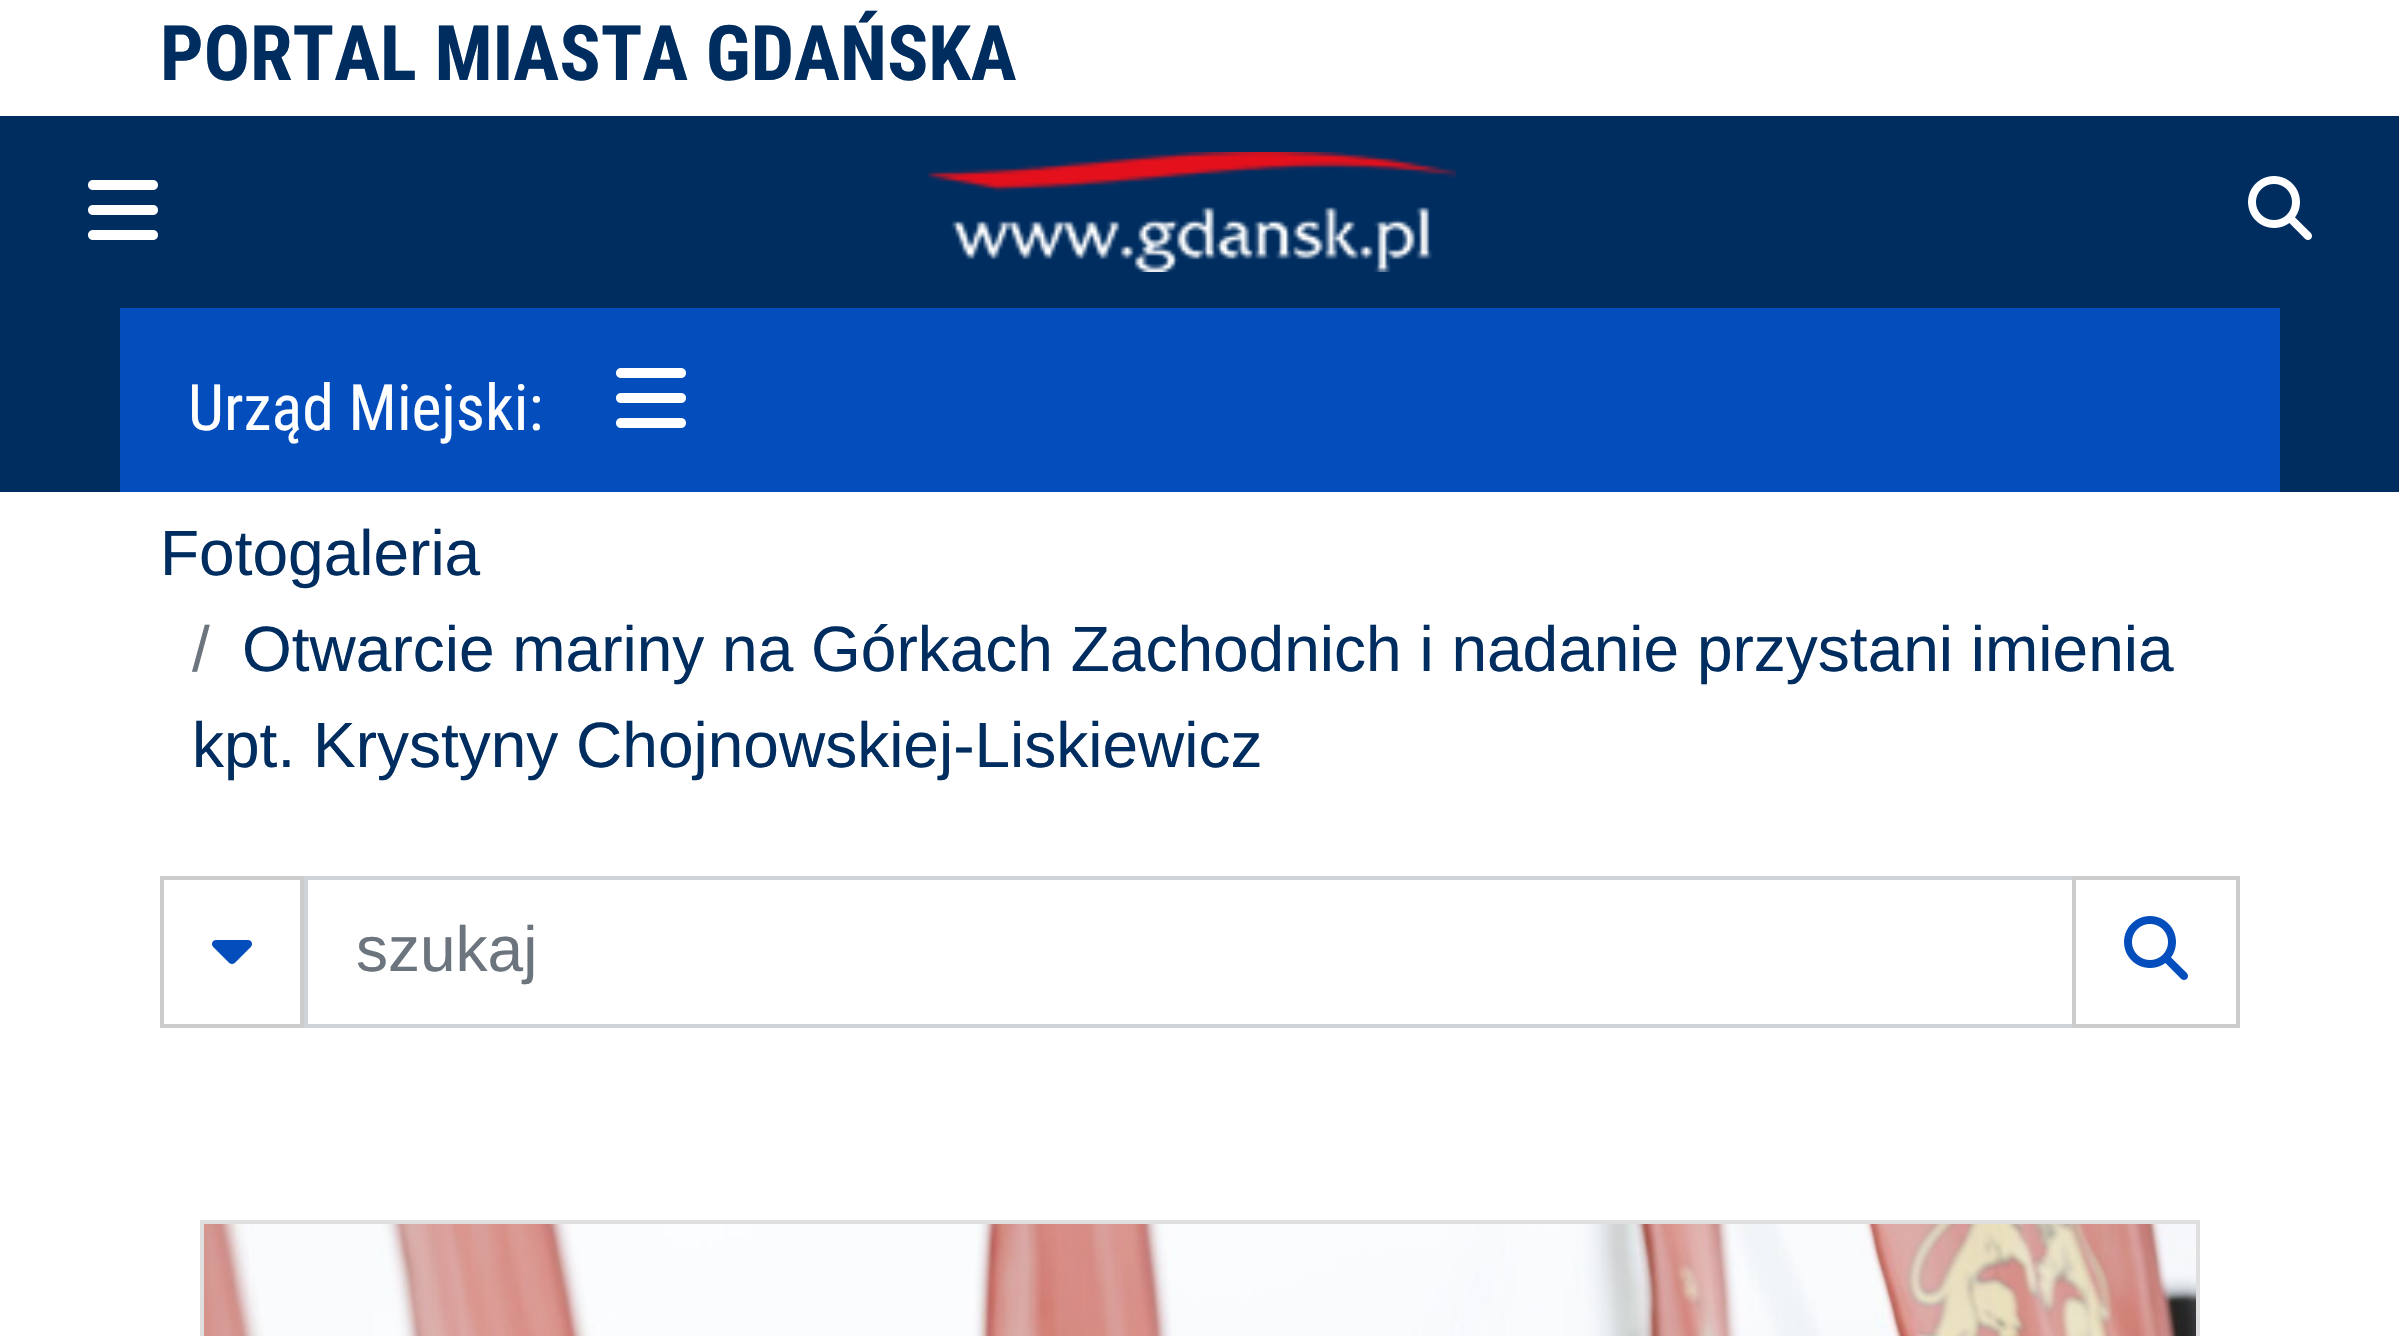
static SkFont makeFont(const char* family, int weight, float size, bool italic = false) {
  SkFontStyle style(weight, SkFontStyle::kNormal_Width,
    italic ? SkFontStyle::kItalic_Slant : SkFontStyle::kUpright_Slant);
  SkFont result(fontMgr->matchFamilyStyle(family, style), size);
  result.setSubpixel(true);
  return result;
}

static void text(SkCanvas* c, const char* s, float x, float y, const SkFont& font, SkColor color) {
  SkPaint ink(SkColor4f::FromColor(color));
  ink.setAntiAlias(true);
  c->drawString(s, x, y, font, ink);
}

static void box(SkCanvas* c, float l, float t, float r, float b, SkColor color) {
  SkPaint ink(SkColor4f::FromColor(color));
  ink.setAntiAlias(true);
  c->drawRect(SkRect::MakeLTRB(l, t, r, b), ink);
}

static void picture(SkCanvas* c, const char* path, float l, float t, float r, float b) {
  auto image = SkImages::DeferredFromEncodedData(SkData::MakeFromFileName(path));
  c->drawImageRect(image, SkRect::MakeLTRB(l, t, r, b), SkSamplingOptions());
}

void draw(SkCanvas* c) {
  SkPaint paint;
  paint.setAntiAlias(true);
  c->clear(0xffffffff);
  SkFont face1 = makeFont("Roboto Condensed", 700, 76.75f);
  text(c, "PORTAL MIASTA GDAŃSKA", 160, 80, face1, 0xff002d60);
  box(c, 0, 116, 2399, 492, 0xff002d60);
  picture(c, "img_01.png", 88, 180, 158, 240);
  picture(c, "img_02.png", 928, 152, 1456, 272);
  picture(c, "img_03.png", 2248, 176, 2312, 240);
  box(c, 120, 308, 2280, 492, 0xff034ebc);
  SkFont face2 = makeFont("Roboto Condensed", 400, 64);
  text(c, "Urząd Miejski:", 188, 430, face2, 0xffffffff);
  picture(c, "img_04.png", 616, 368, 686, 428);
  SkFont face3 = makeFont("Liberation Sans", 400, 64);
  text(c, "Fotogaleria", 160, 575, face3, 0xff002d60);
  text(c, "/", 192, 671, face3, 0xff6c757d);
  text(c, "Otwarcie mariny na Górkach Zachodnich i nadanie przystani imienia", 242, 671, face3, 0xff002d60);
  text(c, "kpt. Krystyny Chojnowskiej-Liskiewicz", 192, 767, face3, 0xff002d60);
  paint.setStyle(SkPaint::kStroke_Style);
  paint.setStrokeWidth(4);
  paint.setColor(0xffcccccc);
  c->drawRect(SkRect::MakeLTRB(162, 878, 302, 1026), paint);
  picture(c, "img_05.png", 212, 940, 252, 964);
  paint.setColor(0xffced4da);
  c->drawRect(SkRect::MakeLTRB(306, 878, 2074, 1026), paint);
  text(c, "szukaj", 356, 971, face3, 0xff6c757d);
  paint.setColor(0xffcccccc);
  c->drawRect(SkRect::MakeLTRB(2074, 878, 2238, 1026), paint);
  picture(c, "img_06.png", 2124, 916, 2188, 980);
  paint.setColor(0xffdfdfdf);
  c->drawRect(SkRect::MakeLTRB(202, 1222, 2198, 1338), paint);
  picture(c, "img_07.png", 204, 1224, 2196, 1336);
}
